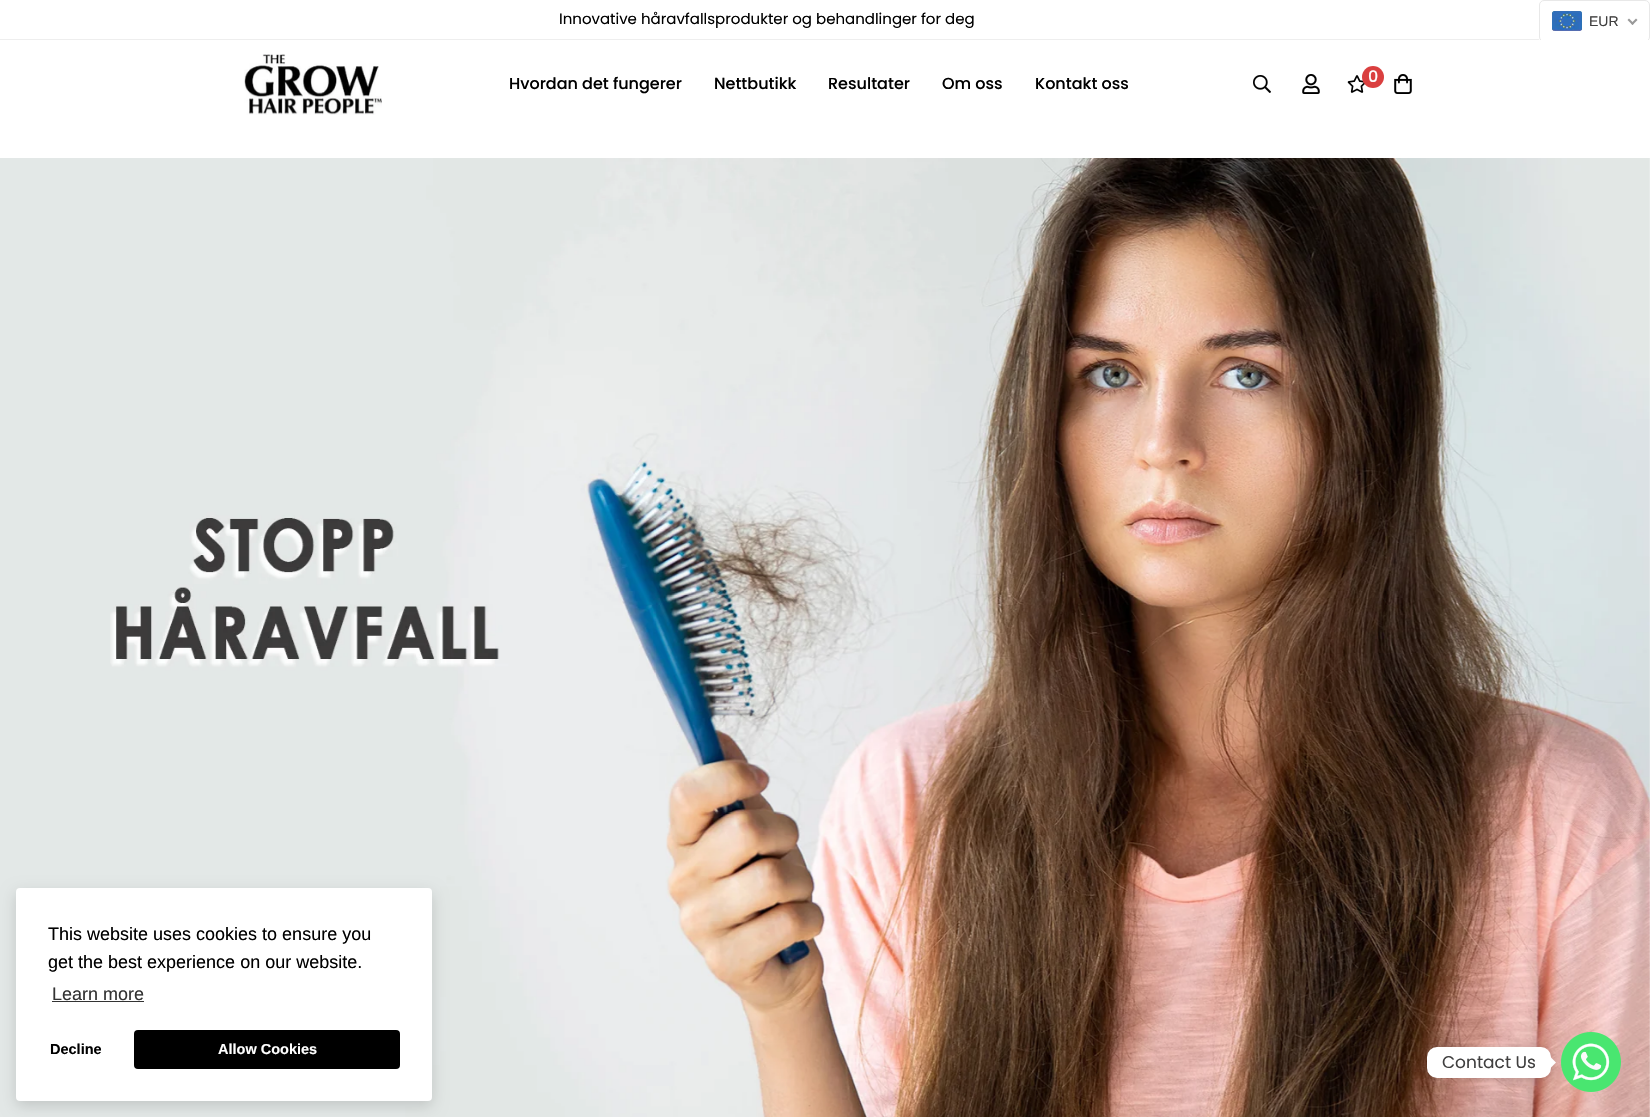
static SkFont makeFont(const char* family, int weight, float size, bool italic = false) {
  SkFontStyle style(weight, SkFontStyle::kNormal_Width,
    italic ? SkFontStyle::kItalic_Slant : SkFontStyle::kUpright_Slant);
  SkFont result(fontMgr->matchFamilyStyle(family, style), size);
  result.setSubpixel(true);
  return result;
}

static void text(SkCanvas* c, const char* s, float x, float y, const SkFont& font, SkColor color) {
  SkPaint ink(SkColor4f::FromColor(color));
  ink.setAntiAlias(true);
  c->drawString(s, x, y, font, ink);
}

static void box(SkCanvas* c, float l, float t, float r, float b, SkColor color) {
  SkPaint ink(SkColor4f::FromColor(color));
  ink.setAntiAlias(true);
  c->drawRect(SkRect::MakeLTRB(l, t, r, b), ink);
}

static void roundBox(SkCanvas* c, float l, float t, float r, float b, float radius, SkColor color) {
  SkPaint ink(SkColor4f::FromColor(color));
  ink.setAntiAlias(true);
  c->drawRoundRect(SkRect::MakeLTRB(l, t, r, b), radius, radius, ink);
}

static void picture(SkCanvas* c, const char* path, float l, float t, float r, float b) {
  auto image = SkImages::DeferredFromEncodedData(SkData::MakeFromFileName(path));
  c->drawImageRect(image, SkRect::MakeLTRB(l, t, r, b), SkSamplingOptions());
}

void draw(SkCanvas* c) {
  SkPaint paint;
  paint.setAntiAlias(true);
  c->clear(0xffffffff);
  box(c, 0, 39, 1539, 40, 0xffeeeeee);
  SkFont face1 = makeFont("Poppins", 400, 15);
  text(c, "Innovative håravfallsprodukter og behandlinger for deg", 559, 24, face1, 0xff000000);
  paint.setStyle(SkPaint::kStroke_Style);
  paint.setStrokeWidth(1);
  paint.setColor(0xffe8e8e8);
  c->drawRoundRect(SkRect::MakeLTRB(1539.5f, 0.5f, 1649.5f, 41.5f), 4.5f, 4.5f, paint);
  box(c, 1540, 40, 1649, 42, 0xffffffff);
  picture(c, "img_01.png", 244, 54, 382, 115);
  SkFont face2 = makeFont("Poppins", 500, 16);
  text(c, "Hvordan det fungerer", 509, 89, face2, 0xff000000);
  text(c, "Nettbutikk", 714, 89, face2, 0xff000000);
  text(c, "Resultater", 828, 89, face2, 0xff000000);
  text(c, "Om oss", 942, 89, face2, 0xff000000);
  text(c, "Kontakt oss", 1035, 89, face2, 0xff000000);
  picture(c, "img_02.png", 1253, 75, 1271, 93);
  picture(c, "img_03.png", 1302, 74, 1320, 94);
  picture(c, "img_04.png", 1347, 75, 1365, 93);
  paint.setStyle(SkPaint::kFill_Style);
  paint.setColor(0xffda3f3f);
  c->drawCircle(1373, 77, 11, paint);
  text(c, "0", 1368, 82, face2, 0xffffffff);
  picture(c, "img_05.png", 1394, 74, 1412, 94);
  picture(c, "img_06.png", 1552, 11, 1582, 31);
  SkFont face3 = makeFont("Liberation Sans", 400, 14);
  text(c, "EUR", 1589, 26, face3, 0xff403f3f);
  paint.setColor(0xff999999);
  c->drawPath(SkPathBuilder().moveTo(1636, 18.5f).lineTo(1637.5f, 20).lineTo(1632.5f, 25).lineTo(1631, 23.5f).close().detach(), paint);
  c->drawPath(SkPathBuilder().moveTo(1629, 18.5f).lineTo(1634, 23.5f).lineTo(1632.5f, 25).lineTo(1627.5f, 20).close().detach(), paint);
  picture(c, "img_07.png", 0, 158, 1650, 1117);
  paint.setColor(0x26000000);
  paint.setMaskFilter(SkMaskFilter::MakeBlur(kNormal_SkBlurStyle, 7.5f));
  c->drawRoundRect(SkRect::MakeLTRB(16, 893, 432, 1106), 4, 4, paint);
  paint.setMaskFilter(nullptr);
  roundBox(c, 16, 888, 432, 1101, 4, 0xffffffff);
  SkFont face4 = makeFont("Liberation Sans", 400, 18);
  text(c, "This website uses cookies to ensure you", 48, 940, face4, 0xff000000);
  text(c, "get the best experience on our website.", 48, 968, face4, 0xff000000);
  text(c, "Learn more", 52, 1000, face4, 0xff333333);
  box(c, 52, 1001, 144, 1002, 0xff333333);
  SkFont face5 = makeFont("Liberation Sans", 700, 14.5f);
  text(c, "Decline", 50, 1054, face5, 0xff000000);
  roundBox(c, 134, 1030, 400, 1069, 4, 0xff000000);
  text(c, "Allow Cookies", 218, 1054, face5, 0xffffffff);
  picture(c, "img_08.png", 1561, 1032, 1621, 1092);
  paint.setMaskFilter(SkMaskFilter::MakeBlur(kNormal_SkBlurStyle, 4));
  c->drawRoundRect(SkRect::MakeLTRB(1427, 1048, 1551, 1079), 10, 10, paint);
  paint.setMaskFilter(nullptr);
  roundBox(c, 1427, 1047, 1551, 1078, 10, 0xffffffff);
  SkFont face6 = makeFont("Poppins", 400, 17);
  text(c, "Contact Us", 1442, 1068, face6, 0xff403f3f);
  paint.setColor(0xffffffff);
  c->drawPath(SkPathBuilder().moveTo(1551, 1067.5f).lineTo(1551, 1057.5f).lineTo(1556, 1062.5f).close().detach(), paint);
}
